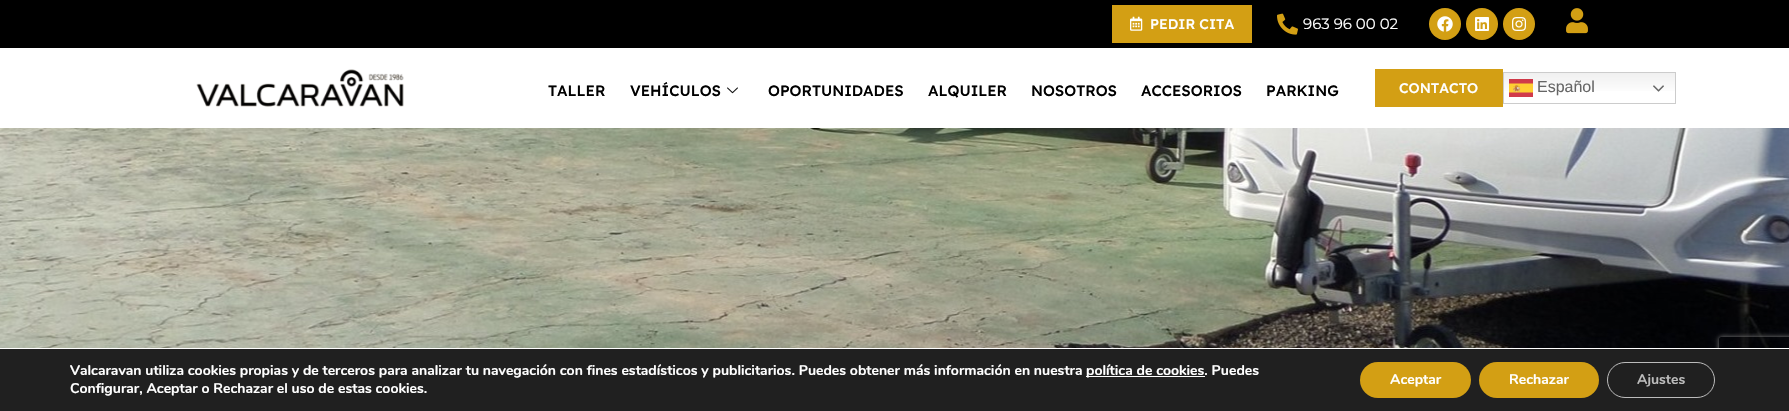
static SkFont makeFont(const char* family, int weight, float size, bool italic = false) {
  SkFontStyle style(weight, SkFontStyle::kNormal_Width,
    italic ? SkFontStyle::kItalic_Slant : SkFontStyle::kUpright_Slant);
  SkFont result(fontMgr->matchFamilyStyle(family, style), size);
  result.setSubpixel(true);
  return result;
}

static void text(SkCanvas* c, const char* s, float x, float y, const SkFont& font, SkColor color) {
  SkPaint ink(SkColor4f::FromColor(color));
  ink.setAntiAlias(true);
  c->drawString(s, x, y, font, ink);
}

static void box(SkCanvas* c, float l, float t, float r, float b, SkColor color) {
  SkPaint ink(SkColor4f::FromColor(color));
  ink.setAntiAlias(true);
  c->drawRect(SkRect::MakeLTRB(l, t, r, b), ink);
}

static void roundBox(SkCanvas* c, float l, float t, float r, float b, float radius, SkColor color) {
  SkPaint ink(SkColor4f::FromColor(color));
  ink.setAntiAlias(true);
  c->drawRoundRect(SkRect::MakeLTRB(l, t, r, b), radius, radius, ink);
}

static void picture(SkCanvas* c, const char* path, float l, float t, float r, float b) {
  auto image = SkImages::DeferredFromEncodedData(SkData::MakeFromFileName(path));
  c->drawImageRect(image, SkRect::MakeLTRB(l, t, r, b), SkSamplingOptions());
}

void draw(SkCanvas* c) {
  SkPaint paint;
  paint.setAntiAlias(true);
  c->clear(0xffffffff);
  box(c, 0, 0, 1789, 48, 0xff000000);
  box(c, 1112, 5, 1252, 43, 0xffd39f14);
  picture(c, "img_01.png", 1130, 16, 1143, 31);
  SkFont face1 = makeFont("Lexend", 500, 14);
  text(c, "PEDIR CITA", 1150, 29, face1, 0xffffffff);
  picture(c, "img_02.png", 1277, 13, 1298, 35);
  SkFont face2 = makeFont("Montserrat", 400, 15);
  text(c, "963 96 00 02", 1303, 29, face2, 0xffffffff);
  paint.setColor(0xffd39f14);
  c->drawCircle(1445, 24, 16, paint);
  picture(c, "img_03.png", 1437, 16, 1453, 32);
  c->drawCircle(1482, 24, 16, paint);
  picture(c, "img_04.png", 1475, 17, 1489, 31);
  c->drawCircle(1519, 24, 16, paint);
  picture(c, "img_05.png", 1512, 17, 1526, 31);
  picture(c, "img_06.png", 1566, 8, 1588, 34);
  picture(c, "img_07.png", 196, 69, 404, 107);
  SkFont face3 = makeFont("Lexend", 500, 15);
  text(c, "TALLER", 548, 96, face3, 0xff000000);
  text(c, "VEHÍCULOS", 630, 96, face3, 0xff000000);
  picture(c, "img_08.png", 727, 87, 738, 94);
  text(c, "OPORTUNIDADES", 768, 96, face3, 0xff000000);
  text(c, "ALQUILER", 928, 96, face3, 0xff000000);
  text(c, "NOSOTROS", 1031, 96, face3, 0xff000000);
  text(c, "ACCESORIOS", 1141, 96, face3, 0xff000000);
  text(c, "PARKING", 1266, 96, face3, 0xff000000);
  box(c, 1375, 69, 1503, 107, 0xffd39f14);
  text(c, "CONTACTO", 1399, 93, face1, 0xffffffff);
  {
    const SkColor colors[] = {0xffefefef, 0xffffffff};
    const float stops[] = {0, 0.7f};
    const SkPoint ends[] = {{1590, 72}, {1590, 104}};
    paint.setShader(SkGradientShader::MakeLinear(ends, colors, stops, 2, SkTileMode::kClamp));
    paint.setAlpha(255);
  }
  c->drawRect(SkRect::MakeLTRB(1504, 73, 1675, 91), paint);
  paint.setStyle(SkPaint::kStroke_Style);
  paint.setStrokeWidth(1);
  paint.setShader(nullptr);
  paint.setColor(0xffcccccc);
  c->drawRect(SkRect::MakeLTRB(1503.5f, 72.5f, 1675.5f, 103.5f), paint);
  picture(c, "img_09.png", 1509, 79, 1533, 97);
  SkFont face4 = makeFont("Liberation Sans", 400, 16);
  text(c, "Español", 1537, 92, face4, 0xff666666);
  picture(c, "img_10.png", 1653, 85, 1664, 92);
  picture(c, "img_11.png", 0, 128, 1789, 348);
  c->save();
  c->clipPath(SkPathBuilder(SkPathFillType::kEvenOdd).moveTo(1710, 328).lineTo(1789, 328).lineTo(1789, 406).lineTo(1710, 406).close().moveTo(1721, 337).lineTo(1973, 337).cubicTo(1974, 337, 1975, 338, 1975, 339).lineTo(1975, 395).cubicTo(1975, 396, 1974, 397, 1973, 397).lineTo(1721, 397).cubicTo(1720, 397, 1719, 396, 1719, 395).lineTo(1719, 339).cubicTo(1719, 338, 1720, 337, 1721, 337).close().detach(), true);
  paint.setStyle(SkPaint::kFill_Style);
  paint.setColor(0xff808080);
  paint.setMaskFilter(SkMaskFilter::MakeBlur(kNormal_SkBlurStyle, 2.5f));
  c->drawRoundRect(SkRect::MakeLTRB(1719, 337, 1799, 397), 2, 2, paint);
  paint.setMaskFilter(nullptr);
  c->restore();
  box(c, 0, 349, 1789, 411, 0xff202020);
  box(c, 1714, 348, 1719, 349, 0xffffffff);
  SkFont face5 = makeFont("Nunito", 700, 14);
  text(c, "Valcaravan utiliza cookies propias y de terceros para analizar tu navegación con fines estadísticos y publicitarios. Puedes obtener más información en nuestra", 70, 375, face5, 0xffffffff);
  box(c, 1086, 376, 1205, 377, 0xffffffff);
  text(c, "política de cookies. Puedes", 1086, 375, face5, 0xffffffff);
  text(c, "Configurar, Aceptar o Rechazar el uso de estas cookies.", 70, 393, face5, 0xffffffff);
  roundBox(c, 1360, 362, 1471, 398, 18, 0xffd39f14);
  text(c, "Aceptar", 1390, 384, face5, 0xffffffff);
  roundBox(c, 1479, 362, 1599, 398, 18, 0xffd39f14);
  text(c, "Rechazar", 1509, 384, face5, 0xffffffff);
  paint.setStyle(SkPaint::kStroke_Style);
  paint.setColor(0xffbcbcbc);
  c->drawRoundRect(SkRect::MakeLTRB(1607.5f, 362.5f, 1714.5f, 397.5f), 17.5f, 17.5f, paint);
  text(c, "Ajustes", 1637, 384, face5, 0xffbcbcbc);
}
